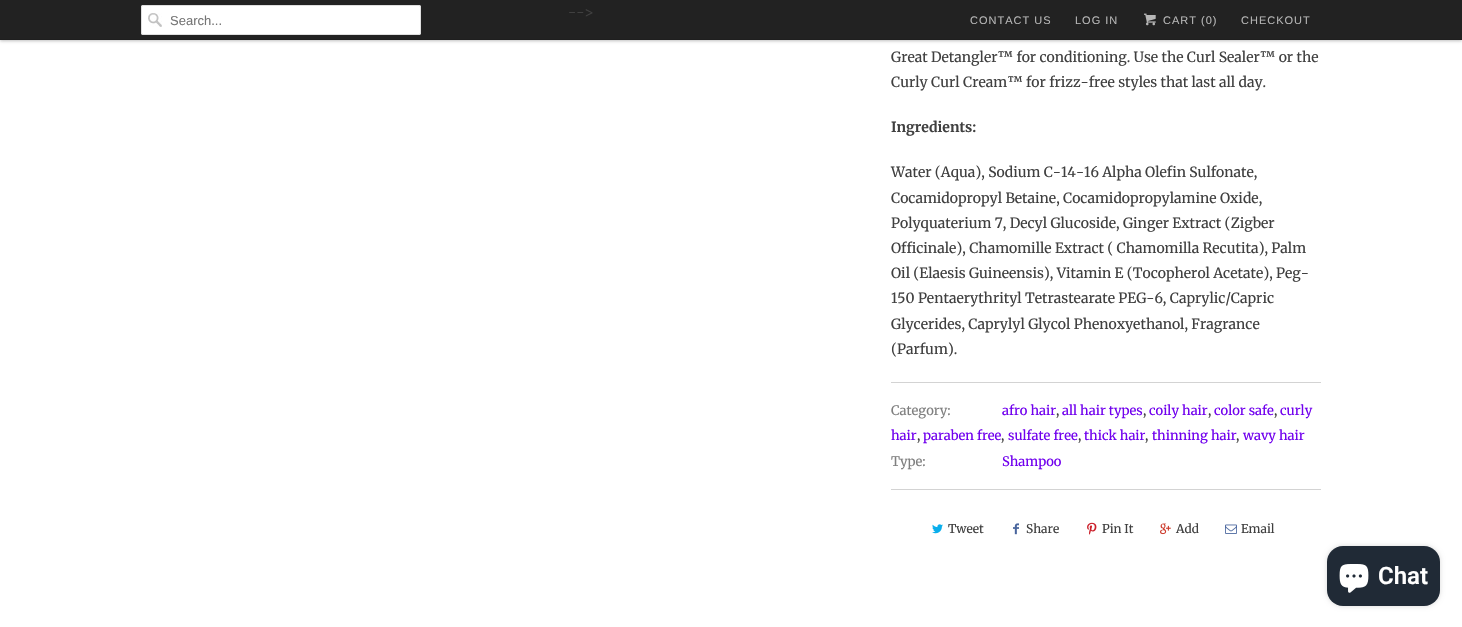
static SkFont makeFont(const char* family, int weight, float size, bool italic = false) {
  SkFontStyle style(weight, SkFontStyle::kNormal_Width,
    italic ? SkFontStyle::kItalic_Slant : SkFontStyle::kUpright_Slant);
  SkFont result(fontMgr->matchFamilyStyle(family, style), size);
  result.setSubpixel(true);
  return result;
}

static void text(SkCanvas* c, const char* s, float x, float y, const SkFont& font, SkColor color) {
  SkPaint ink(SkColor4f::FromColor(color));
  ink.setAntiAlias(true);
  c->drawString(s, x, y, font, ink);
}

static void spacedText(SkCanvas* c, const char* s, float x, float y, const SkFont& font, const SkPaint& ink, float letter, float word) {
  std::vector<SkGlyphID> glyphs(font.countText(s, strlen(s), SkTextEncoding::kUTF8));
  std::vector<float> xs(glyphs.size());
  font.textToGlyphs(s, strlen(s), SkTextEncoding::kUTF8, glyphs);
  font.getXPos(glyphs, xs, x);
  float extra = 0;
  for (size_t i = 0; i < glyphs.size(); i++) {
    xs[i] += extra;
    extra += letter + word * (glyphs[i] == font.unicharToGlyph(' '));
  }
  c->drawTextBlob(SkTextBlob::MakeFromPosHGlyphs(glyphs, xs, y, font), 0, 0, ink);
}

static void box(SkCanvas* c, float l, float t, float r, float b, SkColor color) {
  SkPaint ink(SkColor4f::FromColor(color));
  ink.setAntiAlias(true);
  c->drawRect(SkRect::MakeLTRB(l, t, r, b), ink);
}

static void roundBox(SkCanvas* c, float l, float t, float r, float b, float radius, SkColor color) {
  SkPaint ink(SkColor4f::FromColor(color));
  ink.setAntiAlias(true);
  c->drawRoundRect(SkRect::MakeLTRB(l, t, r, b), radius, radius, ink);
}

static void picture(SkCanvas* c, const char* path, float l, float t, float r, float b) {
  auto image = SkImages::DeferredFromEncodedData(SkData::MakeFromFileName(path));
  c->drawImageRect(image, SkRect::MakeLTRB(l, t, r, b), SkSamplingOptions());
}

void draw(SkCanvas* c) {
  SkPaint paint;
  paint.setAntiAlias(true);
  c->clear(0xffffffff);
  paint.setColor(0x40000000);
  paint.setMaskFilter(SkMaskFilter::MakeBlur(kNormal_SkBlurStyle, 1.5f));
  c->drawRect(SkRect::MakeLTRB(0, 1, 1462, 41), paint);
  paint.setMaskFilter(nullptr);
  box(c, 0, 0, 1462, 39, 0xff222222);
  box(c, 0, 39, 1462, 40, 0xff1f1f1f);
  SkFont face1 = makeFont("Merriweather", 400, 14);
  text(c, "-->", 568, 17, face1, 0xff404040);
  roundBox(c, 141, 5, 421, 35, 2, 0xffffffff);
  picture(c, "img_01.png", 148, 13, 162, 27);
  paint.setStyle(SkPaint::kStroke_Style);
  paint.setStrokeWidth(1);
  paint.setColor(0xffdfdfdf);
  c->drawRoundRect(SkRect::MakeLTRB(141.5f, 5.5f, 420.5f, 34.5f), 1.5f, 1.5f, paint);
  SkFont face2 = makeFont("Liberation Sans", 400, 13);
  text(c, "Search...", 170, 25, face2, 0xff757575);
  SkFont face3 = makeFont("Liberation Sans", 400, 11);
  paint.setStyle(SkPaint::kFill_Style);
  paint.setColor(0xffb6b6b6);
  spacedText(c, "CONTACT US", 970, 24, face3, paint, 1, 0);
  spacedText(c, "LOG IN", 1075, 24, face3, paint, 1, 0);
  picture(c, "img_02.png", 1144, 13, 1156, 26);
  spacedText(c, "CART (0)", 1163, 24, face3, paint, 1, 0);
  spacedText(c, "CHECKOUT", 1241, 24, face3, paint, 1, 0);
  text(c, "Great Detangler™ for conditioning. Use the Curl Sealer™ or the", 891, 62, face1, 0xff404040);
  text(c, "Curly Curl Cream™ for frizz-free styles that last all day.", 891, 87, face1, 0xff404040);
  SkFont face4 = makeFont("Merriweather", 700, 14);
  text(c, "Ingredients:", 891, 132, face4, 0xff404040);
  text(c, "Water (Aqua), Sodium C-14-16 Alpha Olefin Sulfonate,", 891, 177, face1, 0xff404040);
  text(c, "Cocamidopropyl Betaine, Cocamidopropylamine Oxide,", 891, 203, face1, 0xff404040);
  text(c, "Polyquaterium 7, Decyl Glucoside, Ginger Extract (Zigber", 891, 228, face1, 0xff404040);
  text(c, "Officinale), Chamomille Extract ( Chamomilla Recutita), Palm", 891, 253, face1, 0xff404040);
  text(c, "Oil (Elaesis Guineensis), Vitamin E (Tocopherol Acetate), Peg-", 891, 278, face1, 0xff404040);
  text(c, "150 Pentaerythrityl Tetrastearate PEG-6, Caprylic/Capric", 891, 303, face1, 0xff404040);
  text(c, "Glycerides, Caprylyl Glycol Phenoxyethanol, Fragrance", 891, 329, face1, 0xff404040);
  text(c, "(Parfum).", 891, 354, face1, 0xff404040);
  box(c, 891, 382, 1321, 383, 0xffd3d3d3);
  SkFont face5 = makeFont("Merriweather", 400, 13);
  text(c, "Category:", 891, 415, face5, 0xff808080);
  text(c, "afro hair", 1002, 415, face5, 0xff7101ee);
  text(c, ",", 1056, 415, face5, 0xff404040);
  text(c, "all hair types", 1062, 415, face5, 0xff7101ee);
  text(c, ",", 1143, 415, face5, 0xff404040);
  text(c, "coily hair", 1149, 415, face5, 0xff7101ee);
  text(c, ",", 1208, 415, face5, 0xff404040);
  text(c, "color safe", 1214, 415, face5, 0xff7101ee);
  text(c, ",", 1274, 415, face5, 0xff404040);
  text(c, "curly", 1280, 415, face5, 0xff7101ee);
  text(c, "hair", 891, 440, face5, 0xff7101ee);
  text(c, ",", 917, 440, face5, 0xff404040);
  text(c, "paraben free", 923, 440, face5, 0xff7101ee);
  text(c, ",", 1001, 440, face5, 0xff404040);
  text(c, "sulfate free", 1008, 440, face5, 0xff7101ee);
  text(c, ",", 1078, 440, face5, 0xff404040);
  text(c, "thick hair", 1084, 440, face5, 0xff7101ee);
  text(c, ",", 1145, 440, face5, 0xff404040);
  text(c, "thinning hair", 1152, 440, face5, 0xff7101ee);
  text(c, ",", 1236, 440, face5, 0xff404040);
  text(c, "wavy hair", 1243, 440, face5, 0xff7101ee);
  text(c, "Type:", 891, 466, face5, 0xff808080);
  text(c, "Shampoo", 1002, 466, face5, 0xff7101ee);
  box(c, 891, 489, 1321, 490, 0xffd3d3d3);
  picture(c, "img_03.png", 932, 524, 943, 534);
  SkFont face6 = makeFont("Merriweather", 400, 12);
  text(c, "Tweet", 948, 533, face6, 0xff404040);
  picture(c, "img_04.png", 1013, 523, 1019, 535);
  text(c, "Share", 1026, 533, face6, 0xff404040);
  picture(c, "img_05.png", 1087, 522, 1097, 535);
  text(c, "Pin It", 1102, 533, face6, 0xff404040);
  picture(c, "img_06.png", 1160, 523, 1171, 535);
  text(c, "Add", 1176, 533, face6, 0xff404040);
  picture(c, "img_07.png", 1225, 524, 1237, 534);
  text(c, "Email", 1241, 533, face6, 0xff404040);
  paint.setColor(0x26000000);
  paint.setMaskFilter(SkMaskFilter::MakeBlur(kNormal_SkBlurStyle, 2.5f));
  c->drawRoundRect(SkRect::MakeLTRB(1327, 546, 1440, 606), 16, 16, paint);
  paint.setMaskFilter(nullptr);
  roundBox(c, 1327, 546, 1440, 606, 16, 0xff202a36);
  picture(c, "img_08.png", 1339, 564, 1369, 593);
  SkFont face7 = makeFont("Roboto", 600, 24);
  text(c, "Chat", 1378, 584, face7, 0xffffffff);
}
